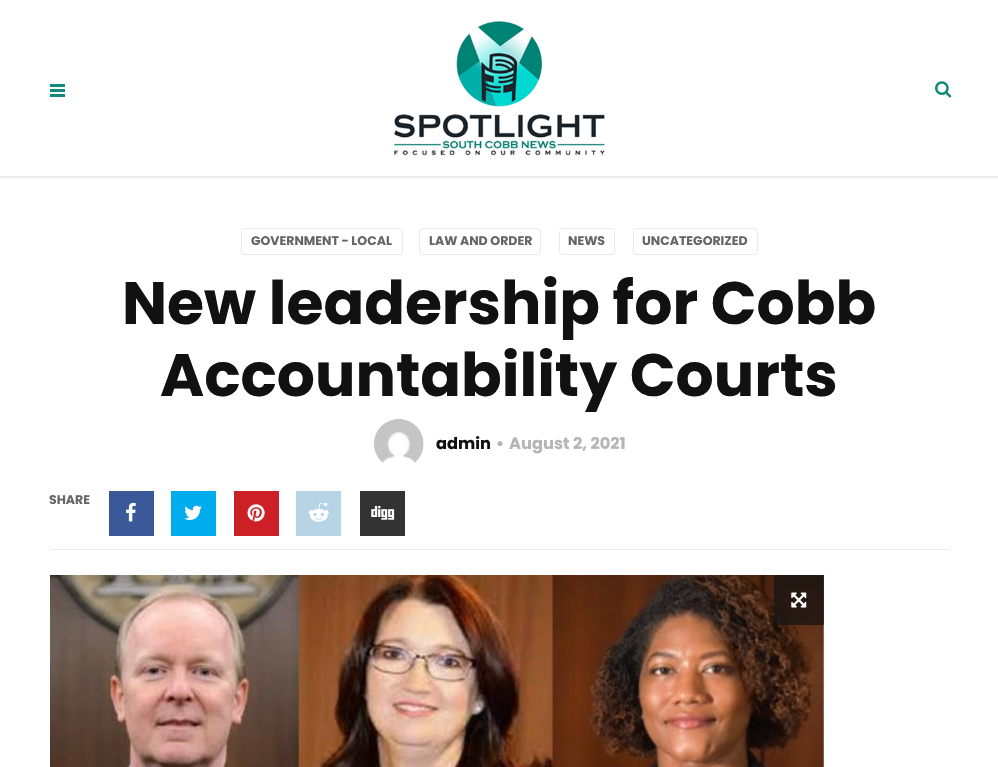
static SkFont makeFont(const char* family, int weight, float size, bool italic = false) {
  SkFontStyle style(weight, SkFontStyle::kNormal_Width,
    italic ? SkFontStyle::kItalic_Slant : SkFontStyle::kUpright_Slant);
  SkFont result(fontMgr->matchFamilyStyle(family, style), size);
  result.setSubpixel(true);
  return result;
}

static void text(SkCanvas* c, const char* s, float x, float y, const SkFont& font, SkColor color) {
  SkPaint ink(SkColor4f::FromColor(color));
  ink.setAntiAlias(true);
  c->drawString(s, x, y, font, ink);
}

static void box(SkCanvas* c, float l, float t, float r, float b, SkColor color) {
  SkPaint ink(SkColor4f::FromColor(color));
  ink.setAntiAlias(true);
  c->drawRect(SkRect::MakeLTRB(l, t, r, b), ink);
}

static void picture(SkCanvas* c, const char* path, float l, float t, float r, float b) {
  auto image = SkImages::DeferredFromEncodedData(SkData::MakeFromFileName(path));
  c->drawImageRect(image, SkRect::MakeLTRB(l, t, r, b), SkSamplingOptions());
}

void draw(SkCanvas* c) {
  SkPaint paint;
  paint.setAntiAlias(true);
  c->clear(0xffffffff);
  box(c, 0, 176, 998, 177, 0xffeaeaea);
  c->save();
  c->clipRect(SkRect::MakeLTRB(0, 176, 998, 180));
  paint.setColor(0xffeaeaea);
  paint.setMaskFilter(SkMaskFilter::MakeBlur(kNormal_SkBlurStyle, 1));
  c->drawRect(SkRect::MakeLTRB(0, 1, 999, 178), paint);
  paint.setMaskFilter(nullptr);
  c->restore();
  box(c, 50, 84, 65, 87, 0xff118a7d);
  box(c, 50, 89, 65, 92, 0xff118a7d);
  box(c, 50, 94, 65, 97, 0xff118a7d);
  picture(c, "img_01.png", 394, 20, 605, 156);
  picture(c, "img_02.png", 935, 81, 952, 98);
  paint.setStyle(SkPaint::kStroke_Style);
  paint.setStrokeWidth(1);
  c->drawRoundRect(SkRect::MakeLTRB(241.5f, 228.5f, 402.5f, 254.5f), 3.5f, 3.5f, paint);
  SkFont face1 = makeFont("Poppins", 700, 12.5f);
  text(c, "GOVERNMENT - LOCAL", 251, 245, face1, 0xff666666);
  c->drawRoundRect(SkRect::MakeLTRB(419.5f, 228.5f, 540.5f, 254.5f), 3.5f, 3.5f, paint);
  text(c, "LAW AND ORDER", 429, 245, face1, 0xff666666);
  c->drawRoundRect(SkRect::MakeLTRB(559.5f, 228.5f, 614.5f, 254.5f), 3.5f, 3.5f, paint);
  text(c, "NEWS", 568, 245, face1, 0xff666666);
  c->drawRoundRect(SkRect::MakeLTRB(633.5f, 228.5f, 757.5f, 254.5f), 3.5f, 3.5f, paint);
  text(c, "UNCATEGORIZED", 642, 245, face1, 0xff666666);
  SkFont face2 = makeFont("Poppins", 700, 60);
  text(c, "New leadership for Cobb", 122, 324, face2, 0xff111111);
  text(c, "Accountability Courts", 160, 396, face2, 0xff111111);
  picture(c, "img_03.png", 374, 419, 424, 463);
  SkFont face3 = makeFont("Poppins", 700, 16.25f);
  text(c, "admin", 436, 449, face3, 0xff111111);
  text(c, "•", 496, 449, face3, 0xffb5b5b5);
  text(c, "August 2, 2021", 509, 449, face3, 0xffb5b5b5);
  text(c, "SHARE", 49, 504, face1, 0xff666666);
  box(c, 109, 491, 154, 536, 0xff3b5998);
  picture(c, "img_04.png", 126, 502, 136, 522);
  box(c, 171, 491, 216, 536, 0xff00aced);
  picture(c, "img_05.png", 184, 505, 202, 520);
  box(c, 234, 491, 279, 536, 0xffcc2026);
  picture(c, "img_06.png", 247, 504, 265, 522);
  box(c, 296, 491, 341, 536, 0xffb6d4e5);
  picture(c, "img_07.png", 308, 502, 329, 522);
  box(c, 360, 491, 405, 536, 0xff333333);
  picture(c, "img_08.png", 371, 506, 395, 520);
  box(c, 50, 549, 950, 550, 0xffeaeaea);
  picture(c, "img_09.png", 50, 575, 824, 767);
  box(c, 774, 575, 824, 625, 0xb3111111);
  picture(c, "img_10.png", 791, 592, 807, 608);
}
